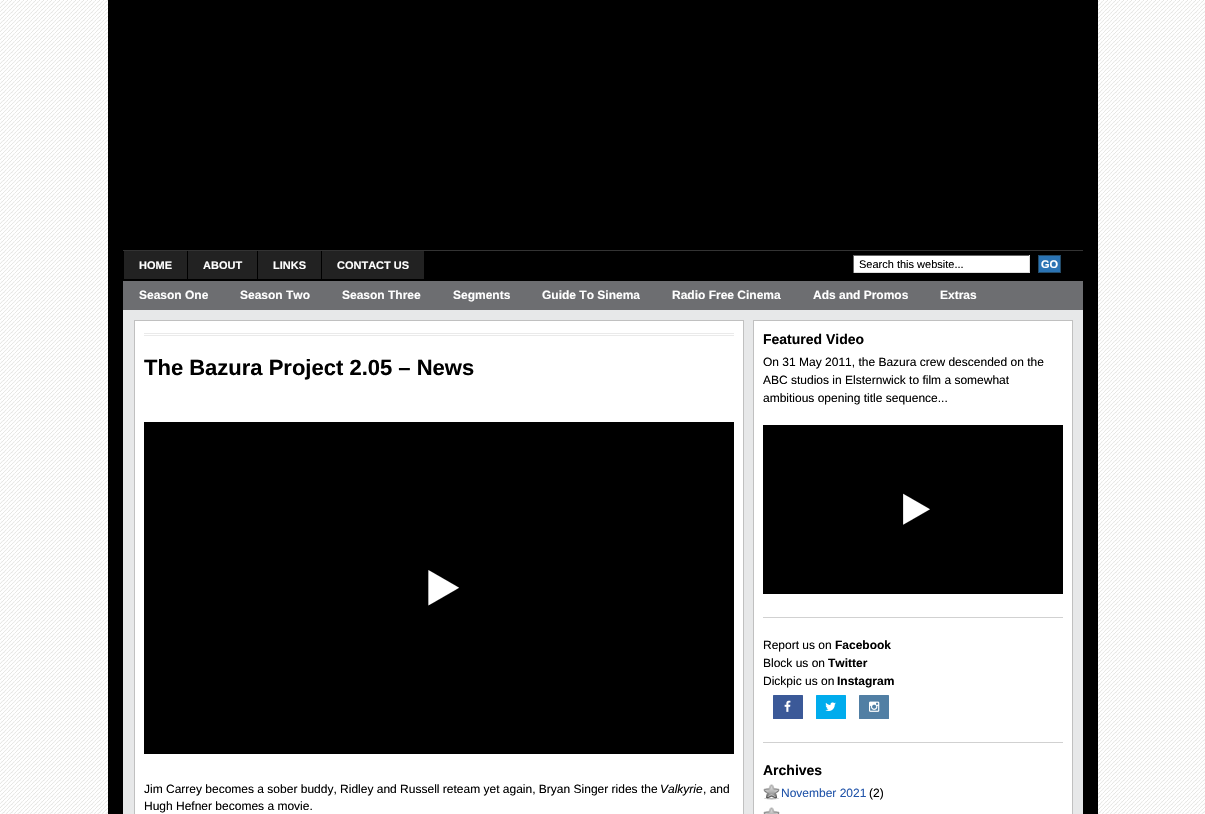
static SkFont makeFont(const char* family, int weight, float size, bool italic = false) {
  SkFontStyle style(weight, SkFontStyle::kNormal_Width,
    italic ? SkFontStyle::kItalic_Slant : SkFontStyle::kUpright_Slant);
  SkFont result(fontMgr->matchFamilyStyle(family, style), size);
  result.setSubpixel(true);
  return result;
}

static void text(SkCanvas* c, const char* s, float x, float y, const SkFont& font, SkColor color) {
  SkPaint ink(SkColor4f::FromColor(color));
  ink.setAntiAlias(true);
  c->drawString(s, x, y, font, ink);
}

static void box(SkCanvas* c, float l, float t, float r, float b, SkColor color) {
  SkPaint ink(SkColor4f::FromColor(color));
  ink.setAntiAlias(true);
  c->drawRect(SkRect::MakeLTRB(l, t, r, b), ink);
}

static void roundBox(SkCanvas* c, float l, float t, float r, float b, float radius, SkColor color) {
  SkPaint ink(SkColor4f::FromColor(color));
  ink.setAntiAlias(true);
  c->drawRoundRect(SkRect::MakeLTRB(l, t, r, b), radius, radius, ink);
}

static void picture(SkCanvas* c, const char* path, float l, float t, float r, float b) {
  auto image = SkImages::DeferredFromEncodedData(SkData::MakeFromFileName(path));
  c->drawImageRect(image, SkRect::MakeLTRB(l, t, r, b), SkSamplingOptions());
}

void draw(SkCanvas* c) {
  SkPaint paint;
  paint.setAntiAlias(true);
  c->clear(0xffffffff);
  picture(c, "img_01.png", 0, 0, 1205, 814);
  picture(c, "img_02.png", 108, 0, 1098, 814);
  box(c, 123, 0, 1083, 250, 0xff000000);
  box(c, 123, 251, 1083, 281, 0xff000000);
  box(c, 123, 250, 1083, 251, 0xff333333);
  box(c, 124, 251, 187, 279, 0xff222222);
  SkFont face1 = makeFont("Liberation Sans", 700, 11);
  text(c, "HOME", 139, 269, face1, 0xffffffff);
  box(c, 188, 251, 257, 279, 0xff222222);
  text(c, "ABOUT", 203, 269, face1, 0xffffffff);
  box(c, 258, 251, 321, 279, 0xff222222);
  text(c, "LINKS", 273, 269, face1, 0xffffffff);
  box(c, 322, 251, 424, 279, 0xff222222);
  text(c, "CONTACT US", 337, 269, face1, 0xffffffff);
  box(c, 854, 256, 1029, 272, 0xffffffff);
  box(c, 853, 255, 1030, 256, 0xff666666);
  box(c, 1029, 255, 1030, 273, 0xffdddddd);
  box(c, 853, 272, 1030, 273, 0xffdddddd);
  box(c, 853, 255, 854, 273, 0xff666666);
  SkFont face2 = makeFont("Liberation Sans", 400, 11);
  text(c, "Search this website...", 859, 268, face2, 0xff000000);
  paint.setColor(0xff2b74b4);
  c->drawRect(SkRect::MakeLTRB(1038.5f, 255.5f, 1060.5f, 272.5f), paint);
  paint.setStyle(SkPaint::kStroke_Style);
  paint.setStrokeWidth(1);
  paint.setColor(0xff234b69);
  c->drawRect(SkRect::MakeLTRB(1038.5f, 255.5f, 1060.5f, 272.5f), paint);
  text(c, "GO", 1041, 268, face1, 0xffffffff);
  box(c, 123, 281, 1083, 310, 0xff6d6e71);
  SkFont face3 = makeFont("Liberation Sans", 700, 12);
  text(c, "Season One", 139, 299, face3, 0xffffffff);
  text(c, "Season Two", 240, 299, face3, 0xffffffff);
  text(c, "Season Three", 342, 299, face3, 0xffffffff);
  text(c, "Segments", 453, 299, face3, 0xffffffff);
  text(c, "Guide To Sinema", 542, 299, face3, 0xffffffff);
  text(c, "Radio Free Cinema", 672, 299, face3, 0xffffffff);
  text(c, "Ads and Promos", 813, 299, face3, 0xffffffff);
  text(c, "Extras", 940, 299, face3, 0xffffffff);
  paint.setStyle(SkPaint::kFill_Style);
  paint.setColor(0xffffffff);
  c->drawRect(SkRect::MakeLTRB(134.5f, 320.5f, 743.5f, 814.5f), paint);
  paint.setStyle(SkPaint::kStroke_Style);
  paint.setColor(0xffc0c0c0);
  c->drawRect(SkRect::MakeLTRB(134.5f, 320.5f, 743.5f, 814.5f), paint);
  box(c, 144, 333, 734, 334, 0xffeaeaea);
  box(c, 144, 335, 734, 336, 0xffeaeaea);
  SkFont face4 = makeFont("Liberation Sans", 700, 22);
  text(c, "The Bazura Project 2.05 – News", 144, 375, face4, 0xff000000);
  box(c, 144, 422, 734, 754, 0xff000000);
  picture(c, "img_03.png", 428, 570, 459, 606);
  SkFont face5 = makeFont("Liberation Sans", 400, 12);
  text(c, "Jim Carrey becomes a sober buddy, Ridley and Russell reteam yet again, Bryan Singer rides the", 144, 793, face5, 0xff000000);
  SkFont face6 = makeFont("Liberation Sans", 400, 12, true);
  text(c, "Valkyrie", 660, 793, face6, 0xff000000);
  text(c, ", and", 703, 793, face5, 0xff000000);
  text(c, "Hugh Hefner becomes a movie.", 144, 810, face5, 0xff000000);
  paint.setStyle(SkPaint::kFill_Style);
  paint.setColor(0xffffffff);
  c->drawRect(SkRect::MakeLTRB(753.5f, 320.5f, 1072.5f, 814.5f), paint);
  paint.setStyle(SkPaint::kStroke_Style);
  paint.setColor(0xffc0c0c0);
  c->drawRect(SkRect::MakeLTRB(753.5f, 320.5f, 1072.5f, 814.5f), paint);
  SkFont face7 = makeFont("Liberation Sans", 700, 14);
  text(c, "Featured Video", 763, 344, face7, 0xff000000);
  text(c, "On 31 May 2011, the Bazura crew descended on the", 763, 366, face5, 0xff000000);
  text(c, "ABC studios in Elsternwick to film a somewhat", 763, 384, face5, 0xff000000);
  text(c, "ambitious opening title sequence...", 763, 402, face5, 0xff000000);
  box(c, 763, 425, 1063, 594, 0xff000000);
  picture(c, "img_04.png", 903, 493, 930, 525);
  box(c, 763, 617, 1063, 618, 0xffd1d1d1);
  text(c, "Report us on", 763, 649, face5, 0xff000000);
  text(c, "Facebook", 835, 649, face3, 0xff000000);
  text(c, "Block us on", 763, 667, face5, 0xff000000);
  text(c, "Twitter", 828, 667, face3, 0xff000000);
  text(c, "Dickpic us on", 763, 685, face5, 0xff000000);
  text(c, "Instagram", 837, 685, face3, 0xff000000);
  roundBox(c, 773, 695, 803, 719, 0.5f, 0xff3b5998);
  picture(c, "img_05.png", 784, 700, 791, 712);
  roundBox(c, 816, 695, 846, 719, 0.5f, 0xff00aced);
  picture(c, "img_06.png", 825, 702, 836, 711);
  roundBox(c, 859, 695, 889, 719, 0.5f, 0xff517fa4);
  picture(c, "img_07.png", 869, 701, 880, 712);
  box(c, 763, 742, 1063, 743, 0xffd1d1d1);
  text(c, "Archives", 763, 775, face7, 0xff000000);
  picture(c, "img_08.png", 763, 784, 780, 800);
  text(c, "November 2021", 781, 797, face5, 0xff2255aa);
  text(c, "(2)", 869, 797, face5, 0xff000000);
  picture(c, "img_09.png", 763, 807, 780, 814);
}
